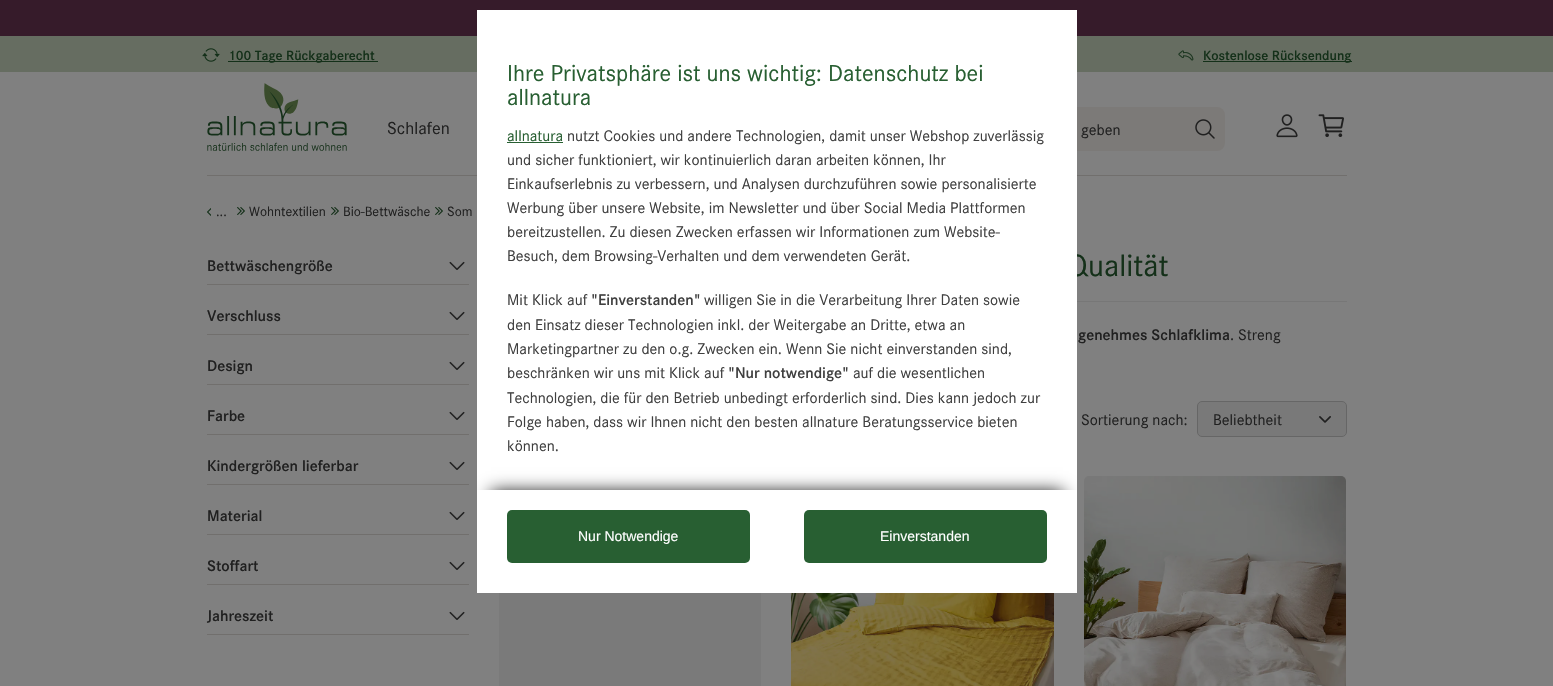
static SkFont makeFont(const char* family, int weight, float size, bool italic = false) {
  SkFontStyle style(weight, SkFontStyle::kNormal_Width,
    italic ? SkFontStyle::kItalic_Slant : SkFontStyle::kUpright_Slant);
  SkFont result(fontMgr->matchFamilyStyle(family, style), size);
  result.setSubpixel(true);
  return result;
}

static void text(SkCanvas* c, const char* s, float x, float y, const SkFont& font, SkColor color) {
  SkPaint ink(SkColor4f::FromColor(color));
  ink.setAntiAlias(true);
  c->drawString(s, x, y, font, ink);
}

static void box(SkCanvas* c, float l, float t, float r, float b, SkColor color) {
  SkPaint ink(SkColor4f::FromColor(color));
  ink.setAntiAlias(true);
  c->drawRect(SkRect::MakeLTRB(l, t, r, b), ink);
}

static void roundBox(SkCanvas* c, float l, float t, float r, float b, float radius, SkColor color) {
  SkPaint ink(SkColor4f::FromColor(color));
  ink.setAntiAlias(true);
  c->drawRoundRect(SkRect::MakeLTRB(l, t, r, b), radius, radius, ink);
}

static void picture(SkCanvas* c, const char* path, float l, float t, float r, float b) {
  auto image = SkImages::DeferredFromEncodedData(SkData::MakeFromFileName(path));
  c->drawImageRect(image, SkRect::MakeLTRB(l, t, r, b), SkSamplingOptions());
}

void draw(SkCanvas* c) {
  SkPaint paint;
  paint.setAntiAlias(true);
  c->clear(0xff808080);
  box(c, 0, 0, 1553, 36, 0xff361b2a);
  box(c, 0, 36, 1553, 72, 0xff666d61);
  picture(c, "img_01.png", 202, 48, 220, 62);
  box(c, 228, 61, 378, 62, 0xff143019);
  SkFont face1 = makeFont("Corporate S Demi", 400, 14);
  text(c, "100 Tage Rückgaberecht", 228, 60, face1, 0xff143019);
  picture(c, "img_02.png", 1178, 50, 1194, 61);
  box(c, 1203, 61, 1352, 62, 0xff143019);
  text(c, "Kostenlose Rücksendung", 1203, 60, face1, 0xff143019);
  box(c, 207, 175, 1347, 176, 0xff716f6d);
  picture(c, "img_03.png", 207, 83, 347, 151);
  SkFont face2 = makeFont("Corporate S", 400, 18);
  text(c, "Schlafen", 387, 134, face2, 0xff202020);
  roundBox(c, 972, 107, 1225, 151, 8, 0xff7c7a78);
  SkFont face3 = makeFont("Corporate S", 400, 16);
  text(c, "geben", 1081, 135, face3, 0xff202020);
  picture(c, "img_04.png", 1195, 119, 1215, 139);
  picture(c, "img_05.png", 1276, 114, 1298, 138);
  picture(c, "img_06.png", 1318, 114, 1344, 137);
  picture(c, "img_07.png", 207, 208, 211, 216);
  SkFont face4 = makeFont("Corporate S", 400, 14);
  text(c, "...", 216, 216, face4, 0xff202020);
  picture(c, "img_08.png", 237, 207, 245, 215);
  text(c, "Wohntextilien", 249, 216, face4, 0xff202020);
  picture(c, "img_08.png", 331, 207, 339, 215);
  text(c, "Bio-Bettwäsche", 343, 216, face4, 0xff202020);
  picture(c, "img_08.png", 435, 207, 443, 215);
  text(c, "Som", 447, 216, face4, 0xff202020);
  box(c, 207, 284, 469, 285, 0xff716f6d);
  SkFont face5 = makeFont("Corporate S Demi", 400, 16);
  text(c, "Bettwäschengröße", 207, 271, face5, 0xff202020);
  picture(c, "img_09.png", 449, 261, 465, 270);
  box(c, 207, 334, 469, 335, 0xff716f6d);
  text(c, "Verschluss", 207, 321, face5, 0xff202020);
  picture(c, "img_09.png", 449, 311, 465, 320);
  box(c, 207, 384, 469, 385, 0xff716f6d);
  text(c, "Design", 207, 371, face5, 0xff202020);
  picture(c, "img_09.png", 449, 361, 465, 370);
  box(c, 207, 434, 469, 435, 0xff716f6d);
  text(c, "Farbe", 207, 421, face5, 0xff202020);
  picture(c, "img_09.png", 449, 411, 465, 420);
  box(c, 207, 484, 469, 485, 0xff716f6d);
  text(c, "Kindergrößen lieferbar", 207, 471, face5, 0xff202020);
  picture(c, "img_09.png", 449, 461, 465, 470);
  box(c, 207, 534, 469, 535, 0xff716f6d);
  text(c, "Material", 207, 521, face5, 0xff202020);
  picture(c, "img_09.png", 449, 511, 465, 520);
  box(c, 207, 584, 469, 585, 0xff716f6d);
  text(c, "Stoffart", 207, 571, face5, 0xff202020);
  picture(c, "img_09.png", 449, 561, 465, 570);
  box(c, 207, 634, 469, 635, 0xff716f6d);
  text(c, "Jahreszeit", 207, 621, face5, 0xff202020);
  picture(c, "img_09.png", 449, 611, 465, 620);
  box(c, 1077, 301, 1347, 302, 0xff777777);
  SkFont face6 = makeFont("Corporate S", 400, 32);
  text(c, "Qualität", 1067, 276, face6, 0xff143019);
  text(c, "genehmes Schlafklima", 1078, 340, face5, 0xff202020);
  text(c, ". Streng", 1230, 340, face3, 0xff202020);
  text(c, "Sortierung nach:", 1081, 425, face3, 0xff202020);
  paint.setColor(0xff797979);
  c->drawRoundRect(SkRect::MakeLTRB(1197.5f, 401.5f, 1346.5f, 436.5f), 4.5f, 4.5f, paint);
  paint.setStyle(SkPaint::kStroke_Style);
  paint.setStrokeWidth(1);
  paint.setColor(0xff666666);
  c->drawRoundRect(SkRect::MakeLTRB(1197.5f, 401.5f, 1346.5f, 436.5f), 4.5f, 4.5f, paint);
  text(c, "Beliebtheit", 1213, 425, face3, 0xff202020);
  picture(c, "img_10.png", 1319, 416, 1331, 423);
  box(c, 499, 593, 761, 686, 0xff7a7a7a);
  picture(c, "img_11.png", 791, 593, 1054, 686);
  picture(c, "img_12.png", 1084, 476, 1346, 686);
  box(c, 477, 10, 1077, 490, 0xffffffff);
  SkFont face7 = makeFont("Corporate S", 400, 24);
  text(c, "Ihre Privatsphäre ist uns wichtig: Datenschutz bei", 507, 81, face7, 0xff285f32);
  text(c, "allnatura", 507, 105, face7, 0xff285f32);
  text(c, "allnatura", 507, 141, face3, 0xff285f32);
  box(c, 507, 142, 563, 143, 0xff285f32);
  text(c, "nutzt Cookies und andere Technologien, damit unser Webshop zuverlässig", 567, 141, face3, 0xff3f3f3f);
  text(c, "und sicher funktioniert, wir kontinuierlich daran arbeiten können, Ihr", 507, 165, face3, 0xff3f3f3f);
  text(c, "Einkaufserlebnis zu verbessern, und Analysen durchzuführen sowie personalisierte", 507, 189, face3, 0xff3f3f3f);
  text(c, "Werbung über unsere Website, im Newsletter und über Social Media Plattformen", 507, 213, face3, 0xff3f3f3f);
  text(c, "bereitzustellen. Zu diesen Zwecken erfassen wir Informationen zum Website-", 507, 237, face3, 0xff3f3f3f);
  text(c, "Besuch, dem Browsing-Verhalten und dem verwendeten Gerät.", 507, 261, face3, 0xff3f3f3f);
  text(c, "Mit Klick auf", 507, 305, face3, 0xff3f3f3f);
  text(c, "\"Einverstanden\"", 591, 305, face5, 0xff3f3f3f);
  text(c, "willigen Sie in die Verarbeitung Ihrer Daten sowie", 704, 305, face3, 0xff3f3f3f);
  text(c, "den Einsatz dieser Technologien inkl. der Weitergabe an Dritte, etwa an", 507, 330, face3, 0xff3f3f3f);
  text(c, "Marketingpartner zu den o.g. Zwecken ein. Wenn Sie nicht einverstanden sind,", 507, 354, face3, 0xff3f3f3f);
  text(c, "beschränken wir uns mit Klick auf", 507, 378, face3, 0xff3f3f3f);
  text(c, "\"Nur notwendige\"", 728, 378, face5, 0xff3f3f3f);
  text(c, "auf die wesentlichen", 853, 378, face3, 0xff3f3f3f);
  text(c, "Technologien, die für den Betrieb unbedingt erforderlich sind. Dies kann jedoch zur", 507, 403, face3, 0xff3f3f3f);
  text(c, "Folge haben, dass wir Ihnen nicht den besten allnature Beratungsservice bieten", 507, 427, face3, 0xff3f3f3f);
  text(c, "können.", 507, 451, face3, 0xff3f3f3f);
  c->save();
  c->clipRect(SkRect::MakeLTRB(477, 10, 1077, 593));
  paint.setStyle(SkPaint::kFill_Style);
  paint.setColor(0xff000000);
  paint.setMaskFilter(SkMaskFilter::MakeBlur(kNormal_SkBlurStyle, 8.5f));
  c->drawRect(SkRect::MakeLTRB(491, 492, 1063, 567), paint);
  paint.setMaskFilter(nullptr);
  c->restore();
  box(c, 477, 490, 1077, 593, 0xffffffff);
  roundBox(c, 507, 510, 750, 563, 5, 0xff285f32);
  SkFont face8 = makeFont("Liberation Sans", 400, 14);
  text(c, "Nur Notwendige", 578, 541, face8, 0xffffffff);
  roundBox(c, 804, 510, 1047, 563, 5, 0xff285f32);
  text(c, "Einverstanden", 880, 541, face8, 0xffffffff);
}
